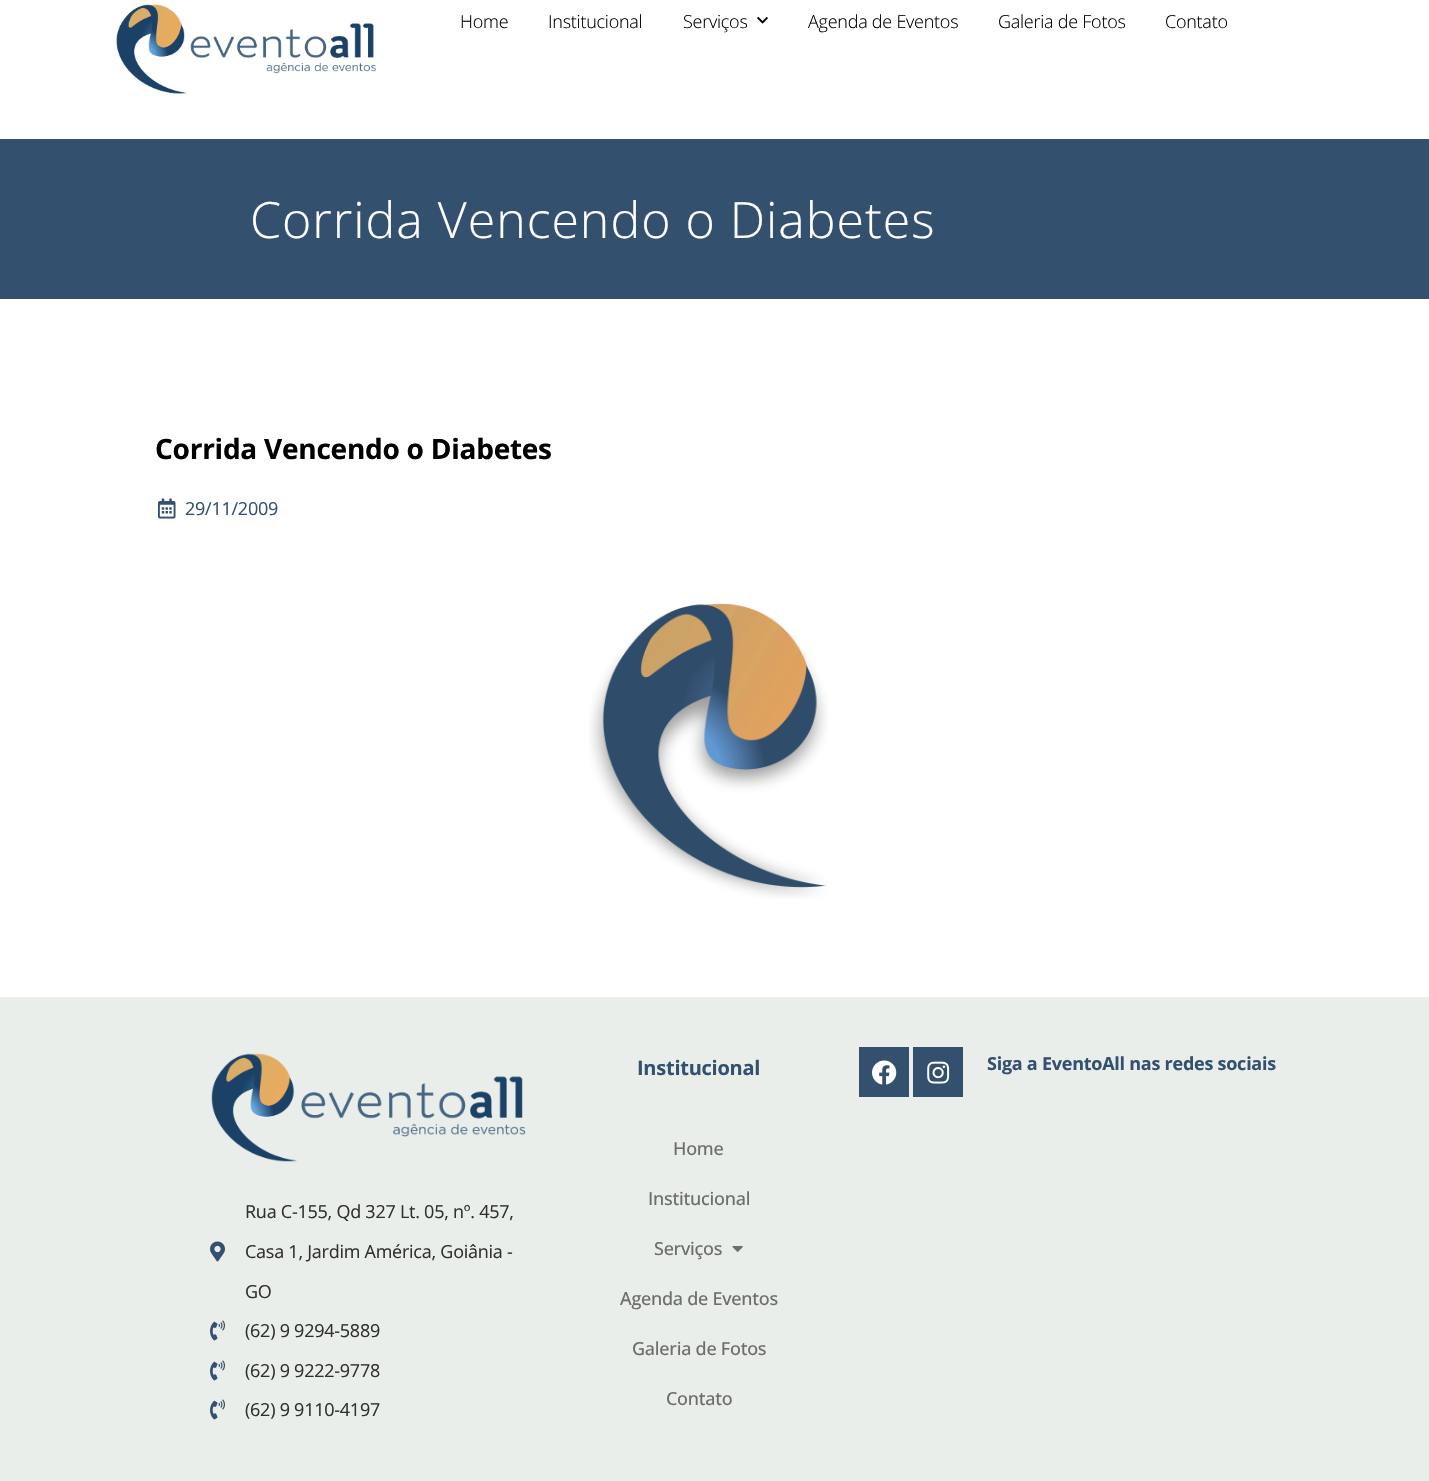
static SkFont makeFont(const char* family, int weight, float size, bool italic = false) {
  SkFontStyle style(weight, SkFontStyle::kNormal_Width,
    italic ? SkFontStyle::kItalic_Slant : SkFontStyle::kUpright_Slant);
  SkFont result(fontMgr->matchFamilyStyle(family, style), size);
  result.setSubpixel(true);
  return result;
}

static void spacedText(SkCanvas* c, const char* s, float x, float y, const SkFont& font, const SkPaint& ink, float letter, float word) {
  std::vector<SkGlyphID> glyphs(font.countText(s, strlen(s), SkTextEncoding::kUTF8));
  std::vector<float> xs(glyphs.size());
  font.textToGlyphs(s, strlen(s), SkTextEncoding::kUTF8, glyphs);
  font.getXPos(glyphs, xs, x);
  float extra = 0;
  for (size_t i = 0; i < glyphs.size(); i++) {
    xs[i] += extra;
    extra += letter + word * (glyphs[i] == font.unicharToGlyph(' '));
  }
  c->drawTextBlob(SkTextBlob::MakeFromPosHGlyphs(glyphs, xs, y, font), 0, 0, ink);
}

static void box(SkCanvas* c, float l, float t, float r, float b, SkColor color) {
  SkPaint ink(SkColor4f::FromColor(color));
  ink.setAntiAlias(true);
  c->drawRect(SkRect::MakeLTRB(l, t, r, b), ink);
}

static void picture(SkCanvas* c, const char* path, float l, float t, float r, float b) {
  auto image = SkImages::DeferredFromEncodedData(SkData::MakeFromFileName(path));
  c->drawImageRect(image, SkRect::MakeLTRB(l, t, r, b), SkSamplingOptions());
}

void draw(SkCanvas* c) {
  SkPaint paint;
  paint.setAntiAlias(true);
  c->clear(0xffffffff);
  picture(c, "img_01.png", 116, 4, 377, 94);
  SkFont face1 = makeFont("Open Sans", 300, 18);
  paint.setColor(0xff000000);
  spacedText(c, "Home", 460, 28, face1, paint, -0.25f, 0);
  spacedText(c, "Institucional", 548, 28, face1, paint, -0.25f, 0);
  spacedText(c, "Serviços", 683, 28, face1, paint, -0.25f, 0);
  picture(c, "img_02.png", 757, 17, 768, 24);
  spacedText(c, "Agenda de Eventos", 808, 28, face1, paint, -0.25f, 0);
  spacedText(c, "Galeria de Fotos", 998, 28, face1, paint, -0.25f, 0);
  spacedText(c, "Contato", 1165, 28, face1, paint, -0.25f, 0);
  box(c, 0, 139, 1429, 299, 0xff34506f);
  SkFont face2 = makeFont("Open Sans", 300, 50);
  paint.setColor(0xffffffff);
  spacedText(c, "Corrida Vencendo o Diabetes", 250, 238, face2, paint, 1, 0);
  SkFont face3 = makeFont("Open Sans", 700, 28);
  paint.setColor(0xff000000);
  spacedText(c, "Corrida Vencendo o Diabetes", 155, 459, face3, paint, -0.25f, 0);
  picture(c, "img_03.png", 158, 498, 176, 519);
  SkFont face4 = makeFont("Open Sans", 400, 18);
  paint.setColor(0xff34506f);
  spacedText(c, "29/11/2009", 185, 515, face4, paint, -0.25f, 0);
  picture(c, "img_04.png", 589, 603, 828, 899);
  box(c, 0, 997, 1429, 1481, 0xffe9eeea);
  picture(c, "img_05.png", 211, 1053, 526, 1162);
  picture(c, "img_06.png", 210, 1241, 225, 1262);
  paint.setColor(0xff303030);
  spacedText(c, "Rua C-155, Qd 327 Lt. 05, nº. 457,", 245, 1218, face4, paint, -0.25f, 0);
  spacedText(c, "Casa 1, Jardim América, Goiânia -", 245, 1258, face4, paint, -0.25f, 0);
  spacedText(c, "GO", 245, 1298, face4, paint, -0.25f, 0);
  picture(c, "img_07.png", 210, 1320, 225, 1341);
  spacedText(c, "(62) 9 9294-5889", 245, 1337, face4, paint, -0.25f, 0);
  picture(c, "img_07.png", 210, 1360, 225, 1381);
  spacedText(c, "(62) 9 9222-9778", 245, 1377, face4, paint, -0.25f, 0);
  picture(c, "img_07.png", 210, 1399, 225, 1420);
  spacedText(c, "(62) 9 9110-4197", 245, 1416, face4, paint, -0.25f, 0);
  SkFont face5 = makeFont("Open Sans", 700, 20);
  paint.setColor(0xff34506f);
  spacedText(c, "Institucional", 637, 1075, face5, paint, -0.25f, 0);
  SkFont face6 = makeFont("Open Sans", 500, 18);
  paint.setColor(0xff6e6e6e);
  spacedText(c, "Home", 673, 1155, face6, paint, -0.25f, 0);
  spacedText(c, "Institucional", 648, 1205, face6, paint, -0.25f, 0);
  spacedText(c, "Serviços", 654, 1255, face6, paint, -0.25f, 0);
  picture(c, "img_08.png", 732, 1246, 743, 1252);
  spacedText(c, "Agenda de Eventos", 620, 1305, face6, paint, -0.25f, 0);
  spacedText(c, "Galeria de Fotos", 632, 1355, face6, paint, -0.25f, 0);
  spacedText(c, "Contato", 666, 1405, face6, paint, -0.25f, 0);
  box(c, 859, 1047, 909, 1097, 0xff34506f);
  picture(c, "img_09.png", 872, 1060, 897, 1085);
  box(c, 913, 1047, 963, 1097, 0xff34506f);
  picture(c, "img_10.png", 927, 1061, 950, 1084);
  SkFont face7 = makeFont("Open Sans", 700, 18);
  paint.setColor(0xff34506f);
  spacedText(c, "Siga a EventoAll nas redes sociais", 987, 1070, face7, paint, -0.25f, 0);
}
